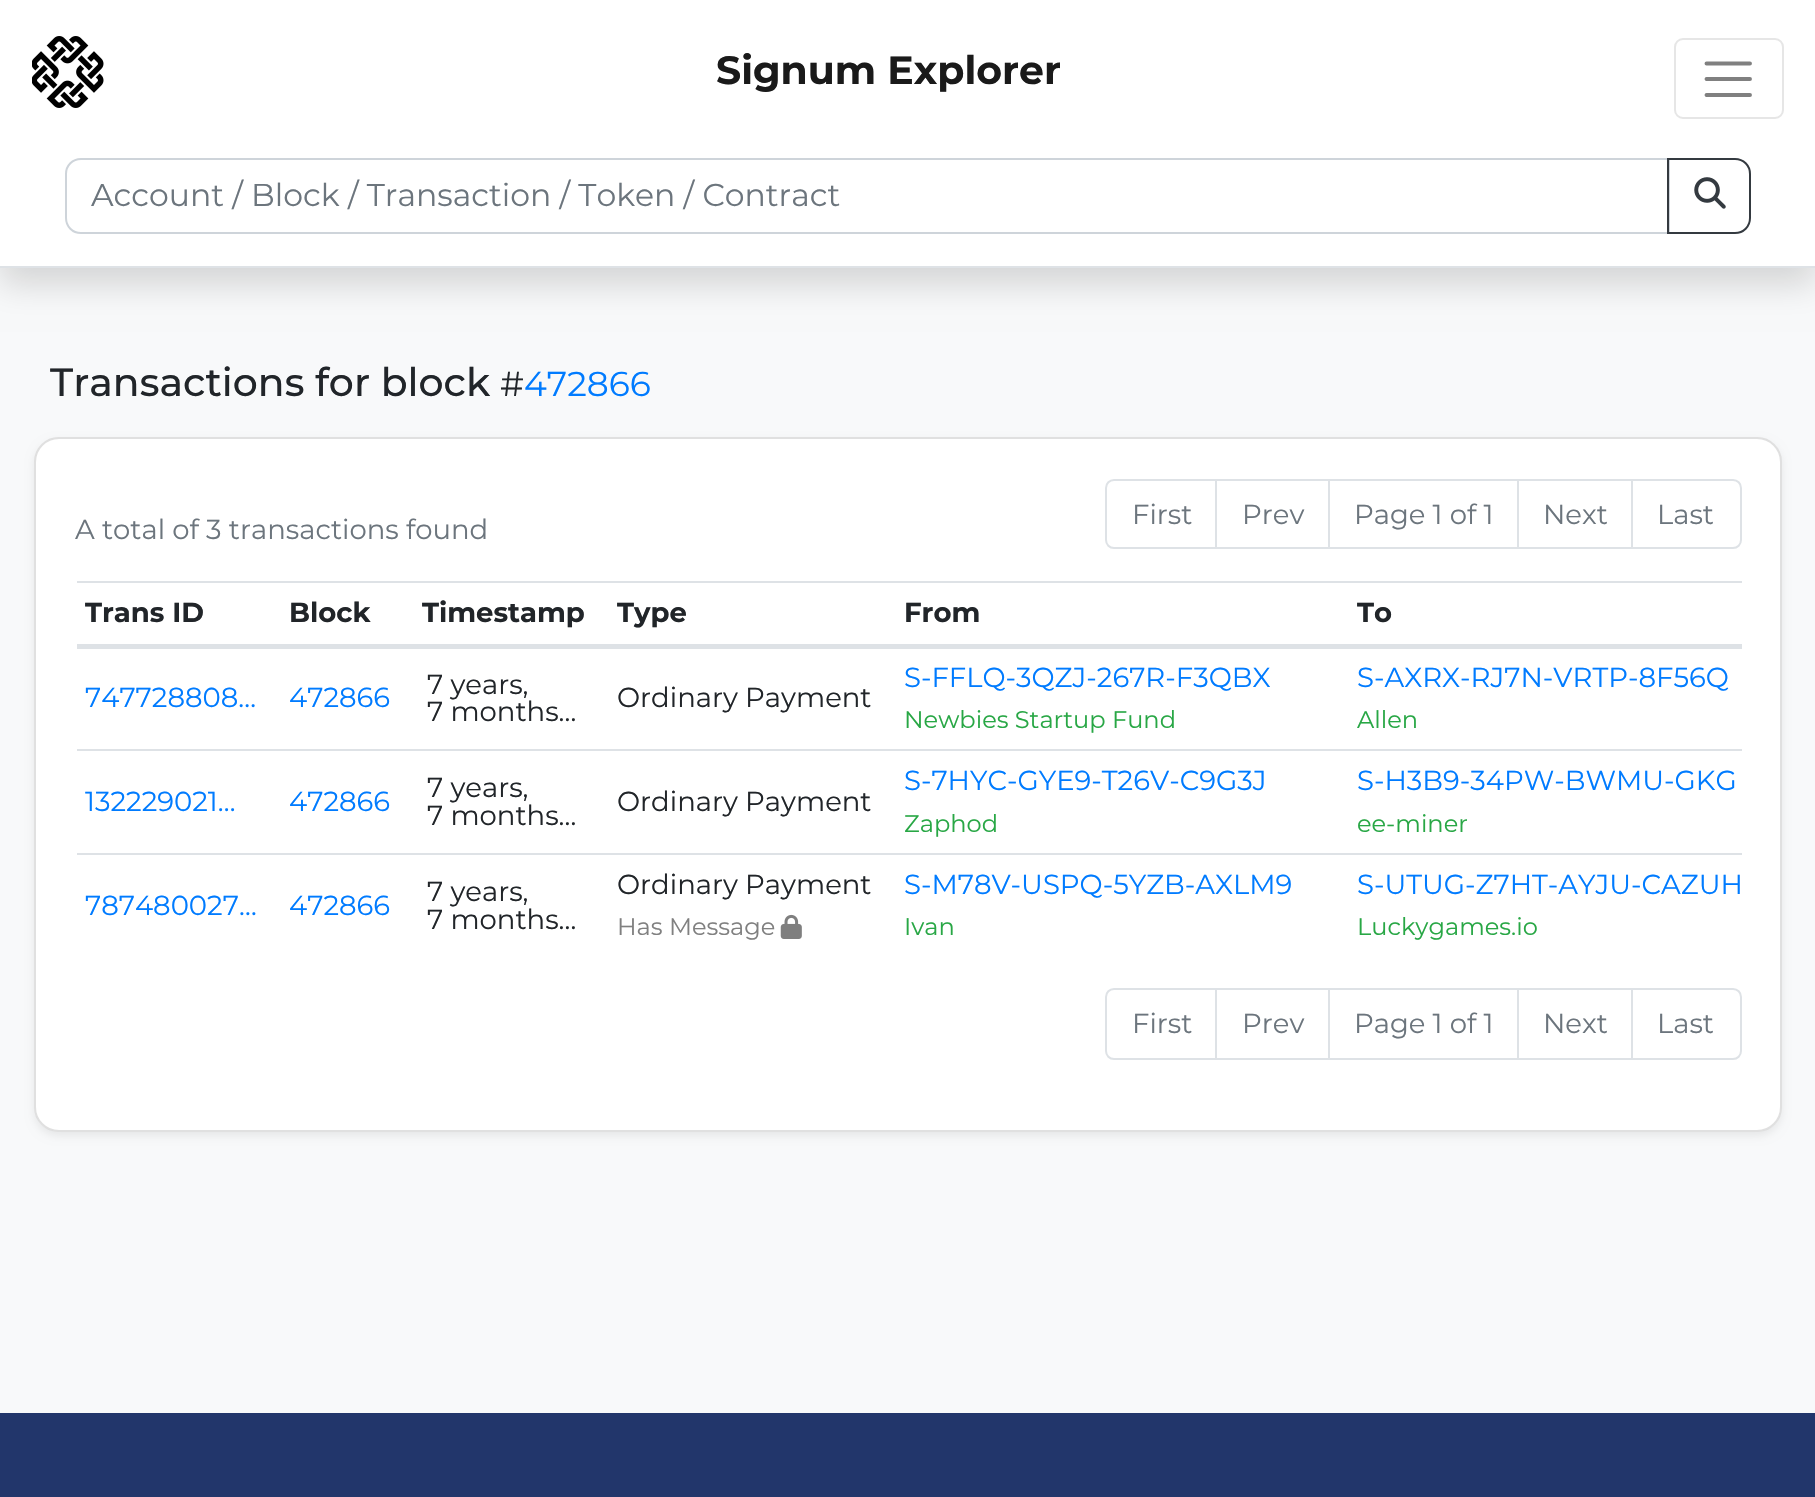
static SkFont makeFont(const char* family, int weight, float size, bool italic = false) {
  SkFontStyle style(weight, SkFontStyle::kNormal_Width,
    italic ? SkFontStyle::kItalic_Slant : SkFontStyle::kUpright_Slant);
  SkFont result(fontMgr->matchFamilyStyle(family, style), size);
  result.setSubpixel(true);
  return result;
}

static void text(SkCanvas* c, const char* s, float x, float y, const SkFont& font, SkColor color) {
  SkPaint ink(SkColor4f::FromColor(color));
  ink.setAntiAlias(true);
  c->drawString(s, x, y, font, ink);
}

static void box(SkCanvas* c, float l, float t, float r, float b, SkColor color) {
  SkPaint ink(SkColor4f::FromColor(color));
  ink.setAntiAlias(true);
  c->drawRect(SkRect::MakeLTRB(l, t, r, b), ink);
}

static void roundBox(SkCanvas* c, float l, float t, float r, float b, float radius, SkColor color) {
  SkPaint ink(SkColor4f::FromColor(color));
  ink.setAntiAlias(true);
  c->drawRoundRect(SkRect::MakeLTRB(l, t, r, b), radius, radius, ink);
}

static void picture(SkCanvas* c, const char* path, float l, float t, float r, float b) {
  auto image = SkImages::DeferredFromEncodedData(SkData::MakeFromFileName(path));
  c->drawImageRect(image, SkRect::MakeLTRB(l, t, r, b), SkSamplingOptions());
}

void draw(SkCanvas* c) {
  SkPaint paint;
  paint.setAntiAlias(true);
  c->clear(0xfff8f9fa);
  paint.setColor(0x26000000);
  paint.setMaskFilter(SkMaskFilter::MakeBlur(kNormal_SkBlurStyle, 16));
  c->drawRect(SkRect::MakeLTRB(0, 16, 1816, 284), paint);
  paint.setMaskFilter(nullptr);
  box(c, 0, 0, 1815, 266, 0xffffffff);
  box(c, 0, 266, 1815, 268, 0xffdee2e6);
  picture(c, "img_01.png", 32, 36, 104, 108);
  SkFont face1 = makeFont("Montserrat", 700, 39.4f);
  text(c, "Signum Explorer", 716, 84, face1, 0xff1a1a1a);
  paint.setStyle(SkPaint::kStroke_Style);
  paint.setStrokeWidth(2);
  paint.setColor(0xffe6e6e6);
  c->drawRoundRect(SkRect::MakeLTRB(1675, 39, 1783, 118), 8, 8, paint);
  paint.setStrokeWidth(3.9f);
  paint.setStrokeCap(SkPaint::kRound_Cap);
  paint.setColor(0xff808080);
  c->drawPath(SkPathBuilder().moveTo(1706.5f, 63.5f).lineTo(1750, 63.5f).moveTo(1706.5f, 79).lineTo(1750, 79).moveTo(1706.5f, 95).lineTo(1750, 95).detach(), paint);
  paint.setStrokeWidth(2);
  paint.setStrokeCap(SkPaint::kButt_Cap);
  paint.setColor(0xffced4da);
  c->drawPath(SkPathBuilder().moveTo(81, 159).lineTo(1669, 159).lineTo(1669, 233).lineTo(81, 233).cubicTo(72.5f, 233, 66, 226.5f, 66, 218).lineTo(66, 174).cubicTo(66, 165.5f, 72.5f, 159, 81, 159).close().detach(), paint);
  SkFont face2 = makeFont("Montserrat", 400, 31.5f);
  text(c, "Account / Block / Transaction / Token / Contract", 91, 206, face2, 0xff6c757d);
  paint.setColor(0xff343a40);
  c->drawPath(SkPathBuilder().moveTo(1668, 159).lineTo(1735, 159).cubicTo(1743.5f, 159, 1750, 165.5f, 1750, 174).lineTo(1750, 218).cubicTo(1750, 226.5f, 1743.5f, 233, 1735, 233).lineTo(1668, 233).close().detach(), paint);
  picture(c, "img_02.png", 1694, 177, 1726, 209);
  SkFont face3 = makeFont("Montserrat", 500, 39.4f);
  text(c, "Transactions for block", 50, 396, face3, 0xff212529);
  SkFont face4 = makeFont("Montserrat", 400, 34.5f);
  text(c, "#", 500, 396, face4, 0xff212529);
  text(c, "472866", 524, 396, face4, 0xff007bff);
  paint.setStyle(SkPaint::kFill_Style);
  paint.setColor(0x12000000);
  paint.setMaskFilter(SkMaskFilter::MakeBlur(kNormal_SkBlurStyle, 4));
  c->drawRoundRect(SkRect::MakeLTRB(34, 441, 1782, 1136), 25, 25, paint);
  paint.setMaskFilter(nullptr);
  roundBox(c, 34, 437, 1782, 1132, 25, 0xffffffff);
  paint.setStyle(SkPaint::kStroke_Style);
  paint.setColor(0x1f000000);
  c->drawRoundRect(SkRect::MakeLTRB(35, 438, 1781, 1131), 24, 24, paint);
  SkFont face5 = makeFont("Montserrat", 400, 27.5f);
  text(c, "A total of 3 transactions found", 75, 539, face5, 0xff6c757d);
  paint.setColor(0xffdee2e6);
  c->drawPath(SkPathBuilder().moveTo(1114, 480).lineTo(1216, 480).lineTo(1216, 548).lineTo(1114, 548).cubicTo(1109.5f, 548, 1106, 544.5f, 1106, 540).lineTo(1106, 488).cubicTo(1106, 483.5f, 1109.5f, 480, 1114, 480).close().detach(), paint);
  text(c, "First", 1132, 524, face5, 0xff6c757d);
  c->drawRect(SkRect::MakeLTRB(1216, 480, 1329, 548), paint);
  text(c, "Prev", 1242, 524, face5, 0xff6c757d);
  c->drawRect(SkRect::MakeLTRB(1329, 480, 1518, 548), paint);
  text(c, "Page 1 of 1", 1354, 524, face5, 0xff6c757d);
  c->drawRect(SkRect::MakeLTRB(1518, 480, 1633, 548), paint);
  text(c, "Next", 1543, 524, face5, 0xff6c757d);
  paint.setStyle(SkPaint::kFill_Style);
  paint.setColor(0xffffffff);
  c->drawPath(SkPathBuilder().moveTo(1632, 480).lineTo(1733, 480).cubicTo(1737.5f, 480, 1741, 483.5f, 1741, 488).lineTo(1741, 540).cubicTo(1741, 544.5f, 1737.5f, 548, 1733, 548).lineTo(1632, 548).close().detach(), paint);
  paint.setStyle(SkPaint::kStroke_Style);
  paint.setColor(0xffdee2e6);
  c->drawPath(SkPathBuilder().moveTo(1632, 480).lineTo(1733, 480).cubicTo(1737.5f, 480, 1741, 483.5f, 1741, 488).lineTo(1741, 540).cubicTo(1741, 544.5f, 1737.5f, 548, 1733, 548).lineTo(1632, 548).close().detach(), paint);
  text(c, "Last", 1657, 524, face5, 0xff6c757d);
  SkFont face6 = makeFont("Montserrat", 700, 27.5f);
  text(c, "Trans ID", 85, 622, face6, 0xff212529);
  text(c, "Block", 289, 622, face6, 0xff212529);
  text(c, "Timestamp", 422, 622, face6, 0xff212529);
  text(c, "Type", 617, 622, face6, 0xff212529);
  text(c, "From", 904, 622, face6, 0xff212529);
  box(c, 77, 581, 1742, 583, 0xffdee2e6);
  box(c, 77, 644, 1742, 649, 0xffdee2e6);
  text(c, "To", 1357, 622, face6, 0xff212529);
  text(c, "747728808…", 85, 707, face5, 0xff007bff);
  text(c, "472866", 289, 707, face5, 0xff007bff);
  text(c, "7 years,", 427, 694, face5, 0xff212529);
  text(c, "7 months…", 427, 721, face5, 0xff212529);
  text(c, "Ordinary Payment", 617, 707, face5, 0xff212529);
  text(c, "S-FFLQ-3QZJ-267R-F3QBX", 904, 687, face5, 0xff007bff);
  SkFont face7 = makeFont("Montserrat", 400, 24.1f);
  text(c, "Newbies Startup Fund", 904, 728, face7, 0xff28a745);
  text(c, "S-AXRX-RJ7N-VRTP-8F56Q", 1357, 687, face5, 0xff007bff);
  text(c, "Allen", 1357, 728, face7, 0xff28a745);
  text(c, "132229021…", 85, 811, face5, 0xff007bff);
  text(c, "472866", 289, 811, face5, 0xff007bff);
  text(c, "7 years,", 427, 797, face5, 0xff212529);
  text(c, "7 months…", 427, 825, face5, 0xff212529);
  text(c, "Ordinary Payment", 617, 811, face5, 0xff212529);
  text(c, "S-7HYC-GYE9-T26V-C9G3J", 904, 790, face5, 0xff007bff);
  text(c, "Zaphod", 904, 832, face7, 0xff28a745);
  box(c, 77, 749, 1742, 751, 0xffdee2e6);
  text(c, "S-H3B9-34PW-BWMU-GKG", 1357, 790, face5, 0xff007bff);
  text(c, "ee-miner", 1357, 832, face7, 0xff28a745);
  text(c, "787480027…", 85, 915, face5, 0xff007bff);
  text(c, "472866", 289, 915, face5, 0xff007bff);
  text(c, "7 years,", 427, 901, face5, 0xff212529);
  text(c, "7 months…", 427, 929, face5, 0xff212529);
  text(c, "Ordinary Payment", 617, 894, face5, 0xff212529);
  text(c, "Has Message", 617, 935, face7, 0xff808080);
  picture(c, "img_03.png", 780, 914, 802, 939);
  text(c, "S-M78V-USPQ-5YZB-AXLM9", 904, 894, face5, 0xff007bff);
  text(c, "Ivan", 904, 935, face7, 0xff28a745);
  box(c, 77, 853, 1742, 855, 0xffdee2e6);
  text(c, "S-UTUG-Z7HT-AYJU-CAZUH", 1357, 894, face5, 0xff007bff);
  text(c, "Luckygames.io", 1357, 935, face7, 0xff28a745);
  c->drawPath(SkPathBuilder().moveTo(1114, 989).lineTo(1216, 989).lineTo(1216, 1059).lineTo(1114, 1059).cubicTo(1109.5f, 1059, 1106, 1055.5f, 1106, 1051).lineTo(1106, 997).cubicTo(1106, 992.5f, 1109.5f, 989, 1114, 989).close().detach(), paint);
  text(c, "First", 1132, 1033, face5, 0xff6c757d);
  c->drawRect(SkRect::MakeLTRB(1216, 989, 1329, 1059), paint);
  text(c, "Prev", 1242, 1033, face5, 0xff6c757d);
  c->drawRect(SkRect::MakeLTRB(1329, 989, 1518, 1059), paint);
  text(c, "Page 1 of 1", 1354, 1033, face5, 0xff6c757d);
  c->drawRect(SkRect::MakeLTRB(1518, 989, 1633, 1059), paint);
  text(c, "Next", 1543, 1033, face5, 0xff6c757d);
  paint.setStyle(SkPaint::kFill_Style);
  paint.setColor(0xffffffff);
  c->drawPath(SkPathBuilder().moveTo(1632, 989).lineTo(1733, 989).cubicTo(1737.5f, 989, 1741, 992.5f, 1741, 997).lineTo(1741, 1051).cubicTo(1741, 1055.5f, 1737.5f, 1059, 1733, 1059).lineTo(1632, 1059).close().detach(), paint);
  paint.setStyle(SkPaint::kStroke_Style);
  paint.setColor(0xffdee2e6);
  c->drawPath(SkPathBuilder().moveTo(1632, 989).lineTo(1733, 989).cubicTo(1737.5f, 989, 1741, 992.5f, 1741, 997).lineTo(1741, 1051).cubicTo(1741, 1055.5f, 1737.5f, 1059, 1733, 1059).lineTo(1632, 1059).close().detach(), paint);
  text(c, "Last", 1657, 1033, face5, 0xff6c757d);
  box(c, 0, 1413, 1815, 1497, 0xff22366b);
}
